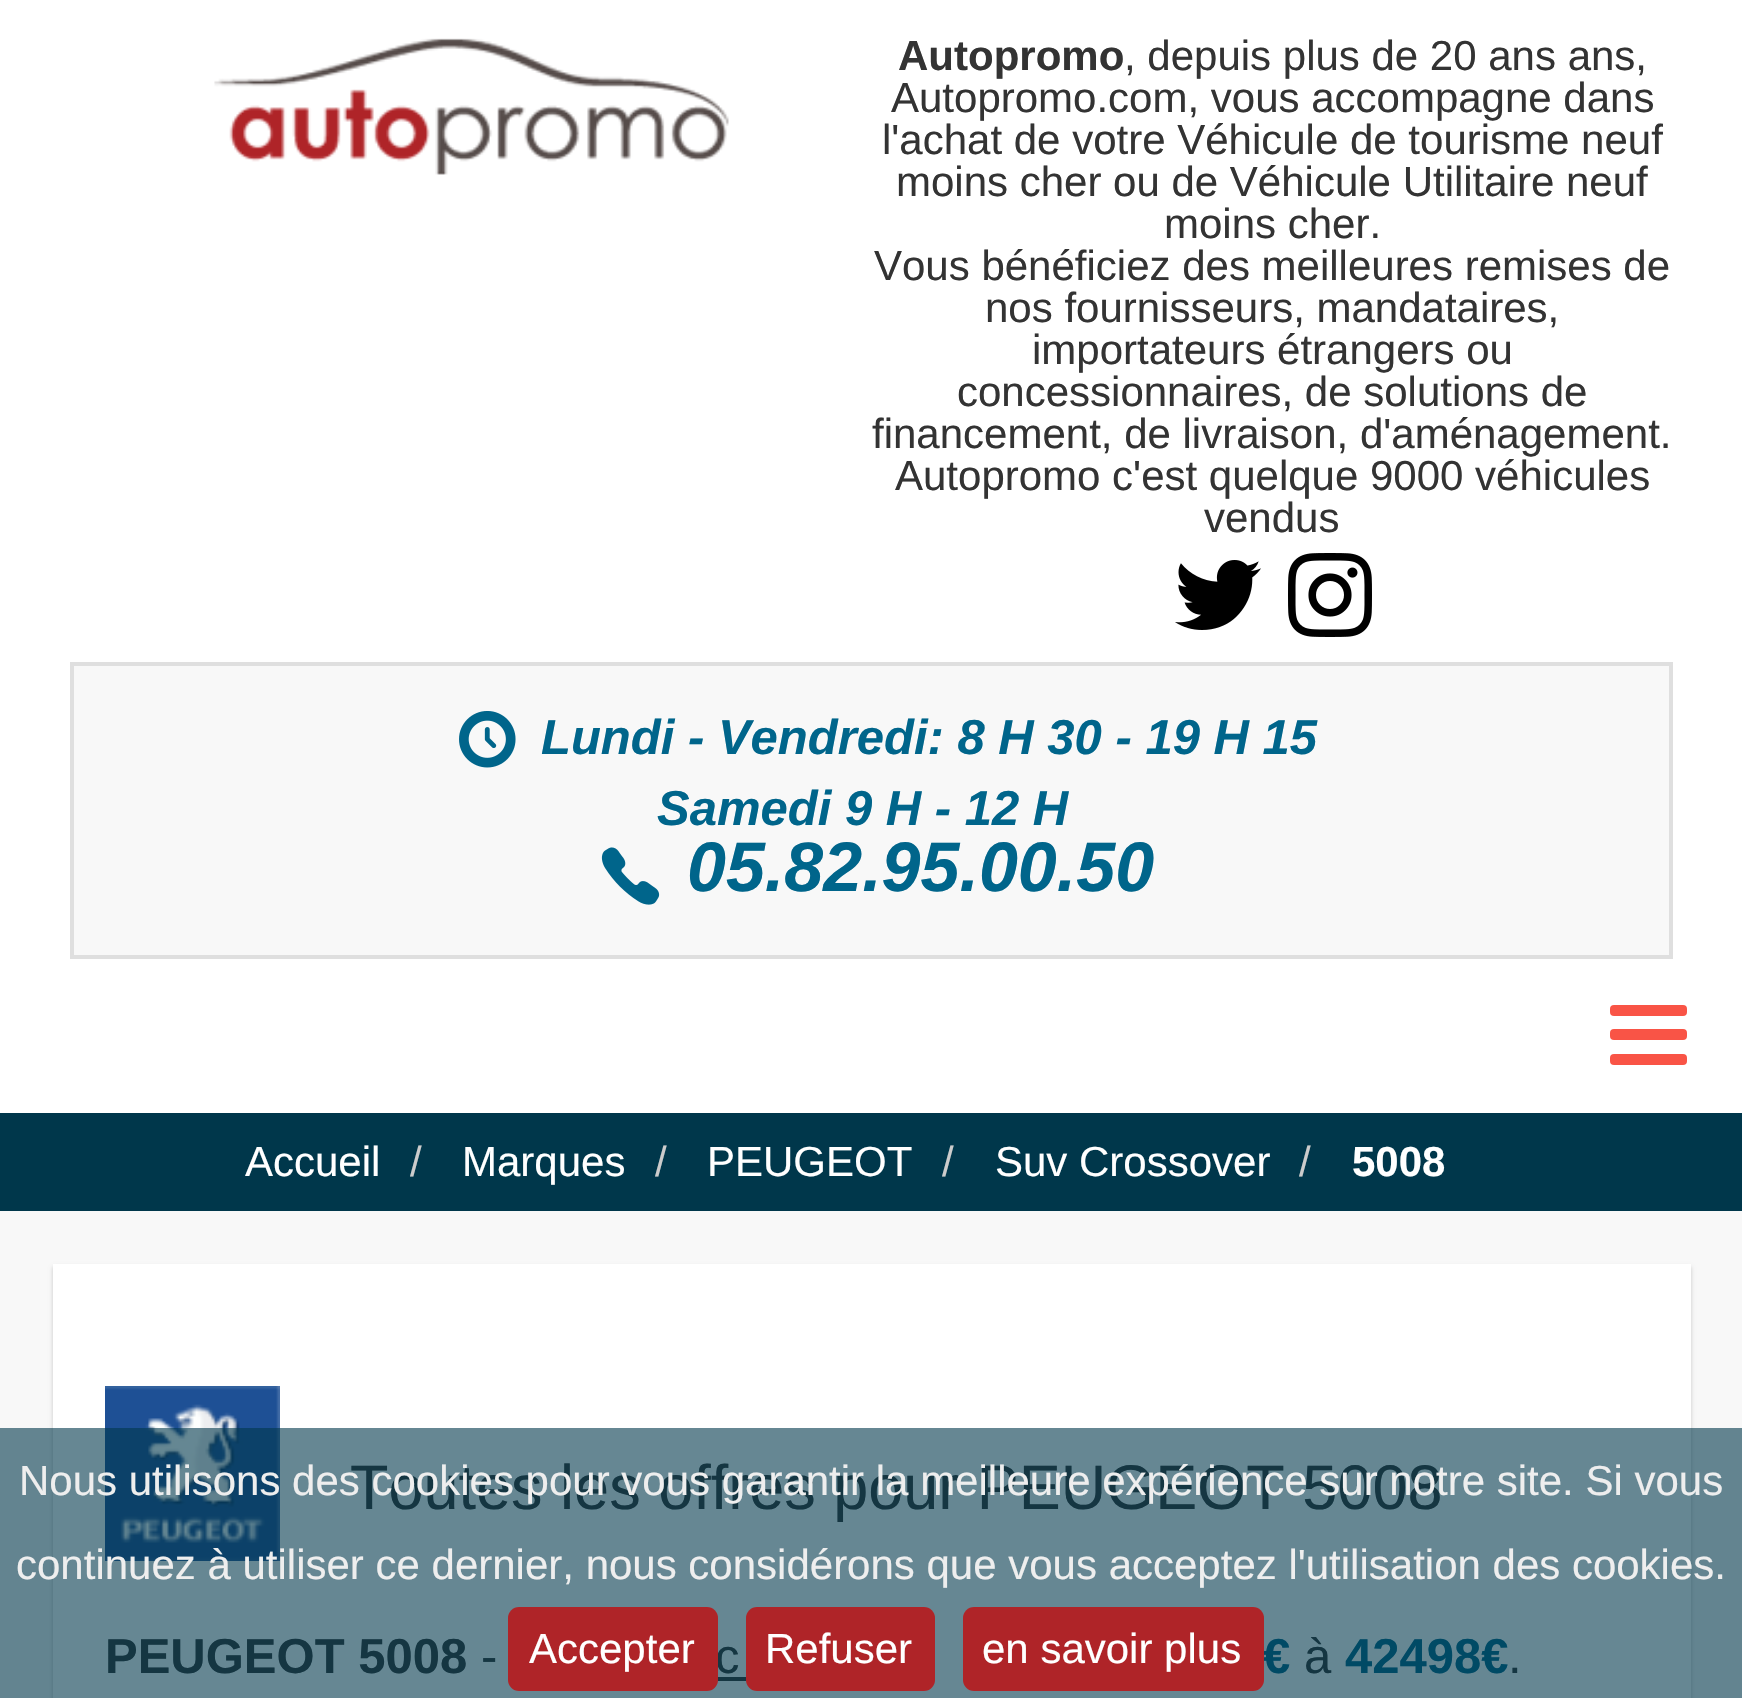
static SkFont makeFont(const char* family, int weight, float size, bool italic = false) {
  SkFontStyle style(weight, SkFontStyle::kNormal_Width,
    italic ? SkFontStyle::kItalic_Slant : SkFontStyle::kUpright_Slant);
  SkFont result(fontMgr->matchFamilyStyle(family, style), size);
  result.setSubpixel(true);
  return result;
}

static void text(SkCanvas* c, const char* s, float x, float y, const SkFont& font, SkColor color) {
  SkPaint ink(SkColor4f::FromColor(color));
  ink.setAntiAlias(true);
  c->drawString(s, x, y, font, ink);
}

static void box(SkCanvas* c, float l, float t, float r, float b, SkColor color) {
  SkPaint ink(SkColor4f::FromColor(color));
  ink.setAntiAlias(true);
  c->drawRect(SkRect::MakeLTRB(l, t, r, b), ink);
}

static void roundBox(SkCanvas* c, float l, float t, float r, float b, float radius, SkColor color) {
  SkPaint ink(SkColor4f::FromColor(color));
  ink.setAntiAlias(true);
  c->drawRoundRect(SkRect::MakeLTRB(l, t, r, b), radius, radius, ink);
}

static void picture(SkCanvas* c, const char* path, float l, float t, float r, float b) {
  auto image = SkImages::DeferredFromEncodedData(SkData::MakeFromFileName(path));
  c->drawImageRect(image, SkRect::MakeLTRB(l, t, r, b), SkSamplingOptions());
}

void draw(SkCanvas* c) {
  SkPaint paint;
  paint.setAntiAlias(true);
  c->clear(0xffffffff);
  picture(c, "img_01.png", 214, 38, 729, 175);
  SkFont face1 = makeFont("Liberation Sans", 700, 42);
  text(c, "Autopromo", 898, 70, face1, 0xff333333);
  SkFont face2 = makeFont("Liberation Sans", 400, 42);
  text(c, ", depuis plus de 20 ans ans,", 1124, 70, face2, 0xff333333);
  text(c, "Autopromo.com, vous accompagne dans", 891, 112, face2, 0xff333333);
  text(c, "l'achat de votre Véhicule de tourisme neuf", 882, 154, face2, 0xff333333);
  text(c, "moins cher ou de Véhicule Utilitaire neuf", 896, 196, face2, 0xff333333);
  text(c, "moins cher.", 1164, 238, face2, 0xff333333);
  text(c, "Vous bénéficiez des meilleures remises de", 874, 280, face2, 0xff333333);
  text(c, "nos fournisseurs, mandataires,", 985, 322, face2, 0xff333333);
  text(c, "importateurs étrangers ou", 1032, 364, face2, 0xff333333);
  text(c, "concessionnaires, de solutions de", 957, 406, face2, 0xff333333);
  text(c, "financement, de livraison, d'aménagement.", 872, 448, face2, 0xff333333);
  text(c, "Autopromo c'est quelque 9000 véhicules", 895, 490, face2, 0xff333333);
  text(c, "vendus", 1204, 532, face2, 0xff333333);
  picture(c, "img_02.png", 1175, 560, 1261, 630);
  picture(c, "img_03.png", 1288, 553, 1372, 637);
  paint.setColor(0xfff8f8f8);
  c->drawRect(SkRect::MakeLTRB(72, 664, 1671, 957), paint);
  paint.setStyle(SkPaint::kStroke_Style);
  paint.setStrokeWidth(4);
  paint.setColor(0xffdfdfdf);
  c->drawRect(SkRect::MakeLTRB(72, 664, 1671, 957), paint);
  picture(c, "img_04.png", 459, 711, 516, 768);
  SkFont face3 = makeFont("Liberation Sans", 700, 49, true);
  text(c, "Lundi - Vendredi: 8 H 30 - 19 H 15", 541, 754, face3, 0xff00658b);
  text(c, "Samedi 9 H - 12 H", 657, 825, face3, 0xff00658b);
  picture(c, "img_05.png", 601, 847, 660, 905);
  SkFont face4 = makeFont("Liberation Sans", 700, 70, true);
  text(c, "05.82.95.00.50", 687, 891, face4, 0xff00658b);
  roundBox(c, 1610, 1005, 1687, 1016, 4, 0xfff95446);
  roundBox(c, 1610, 1029, 1687, 1040, 4, 0xfff95446);
  roundBox(c, 1610, 1054, 1687, 1065, 4, 0xfff95446);
  box(c, 0, 1113, 1742, 1211, 0xff00374b);
  text(c, "Accueil", 245, 1176, face2, 0xffffffff);
  text(c, "/", 410, 1176, face2, 0xffcccccc);
  text(c, "Marques", 462, 1176, face2, 0xffffffff);
  text(c, "/", 655, 1176, face2, 0xffcccccc);
  text(c, "PEUGEOT", 707, 1176, face2, 0xffffffff);
  text(c, "/", 942, 1176, face2, 0xffcccccc);
  text(c, "Suv Crossover", 995, 1176, face2, 0xffffffff);
  text(c, "/", 1299, 1176, face2, 0xffcccccc);
  text(c, "5008", 1352, 1176, face1, 0xffffffff);
  box(c, 0, 1211, 1742, 1698, 0xfff8f8f8);
  paint.setStyle(SkPaint::kFill_Style);
  paint.setColor(0x33000000);
  paint.setMaskFilter(SkMaskFilter::MakeBlur(kNormal_SkBlurStyle, 2));
  c->drawRect(SkRect::MakeLTRB(53, 1267, 1691, 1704), paint);
  paint.setMaskFilter(nullptr);
  box(c, 53, 1264, 1691, 1698, 0xffffffff);
  picture(c, "img_06.png", 105, 1386, 280, 1561);
  SkFont face5 = makeFont("Liberation Sans", 400, 63);
  text(c, "Toutes les offres pour PEUGEOT 5008", 350, 1509, face5, 0xff333333);
  SkFont face6 = makeFont("Liberation Sans", 700, 49);
  text(c, "PEUGEOT 5008", 105, 1673, face6, 0xff333333);
  SkFont face7 = makeFont("Liberation Sans", 400, 49);
  text(c, "-", 481, 1673, face7, 0xff333333);
  text(c, "c", 715, 1673, face7, 0xff333333);
  box(c, 717, 1677, 747, 1681, 0xff333333);
  text(c, "€", 1263, 1673, face6, 0xff00658b);
  text(c, "à", 1304, 1673, face7, 0xff333333);
  text(c, "42498€", 1345, 1673, face6, 0xff00658b);
  text(c, ".", 1508, 1673, face7, 0xff333333);
  box(c, 0, 1428, 1742, 1698, 0x9900374b);
  text(c, "Nous utilisons des cookies pour vous garantir la meilleure expérience sur notre site. Si vous", 19, 1495, face2, 0xffeeeeee);
  text(c, "continuez à utiliser ce dernier, nous considérons que vous acceptez l'utilisation des cookies.", 16, 1579, face2, 0xffeeeeee);
  roundBox(c, 508, 1607, 718, 1691, 11, 0xffaf2428);
  text(c, "Accepter", 529, 1663, face2, 0xffffffff);
  roundBox(c, 746, 1607, 935, 1691, 11, 0xffaf2428);
  text(c, "Refuser", 765, 1663, face2, 0xffffffff);
  roundBox(c, 963, 1607, 1264, 1691, 11, 0xffaf2428);
  text(c, "en savoir plus", 982, 1663, face2, 0xffffffff);
}
